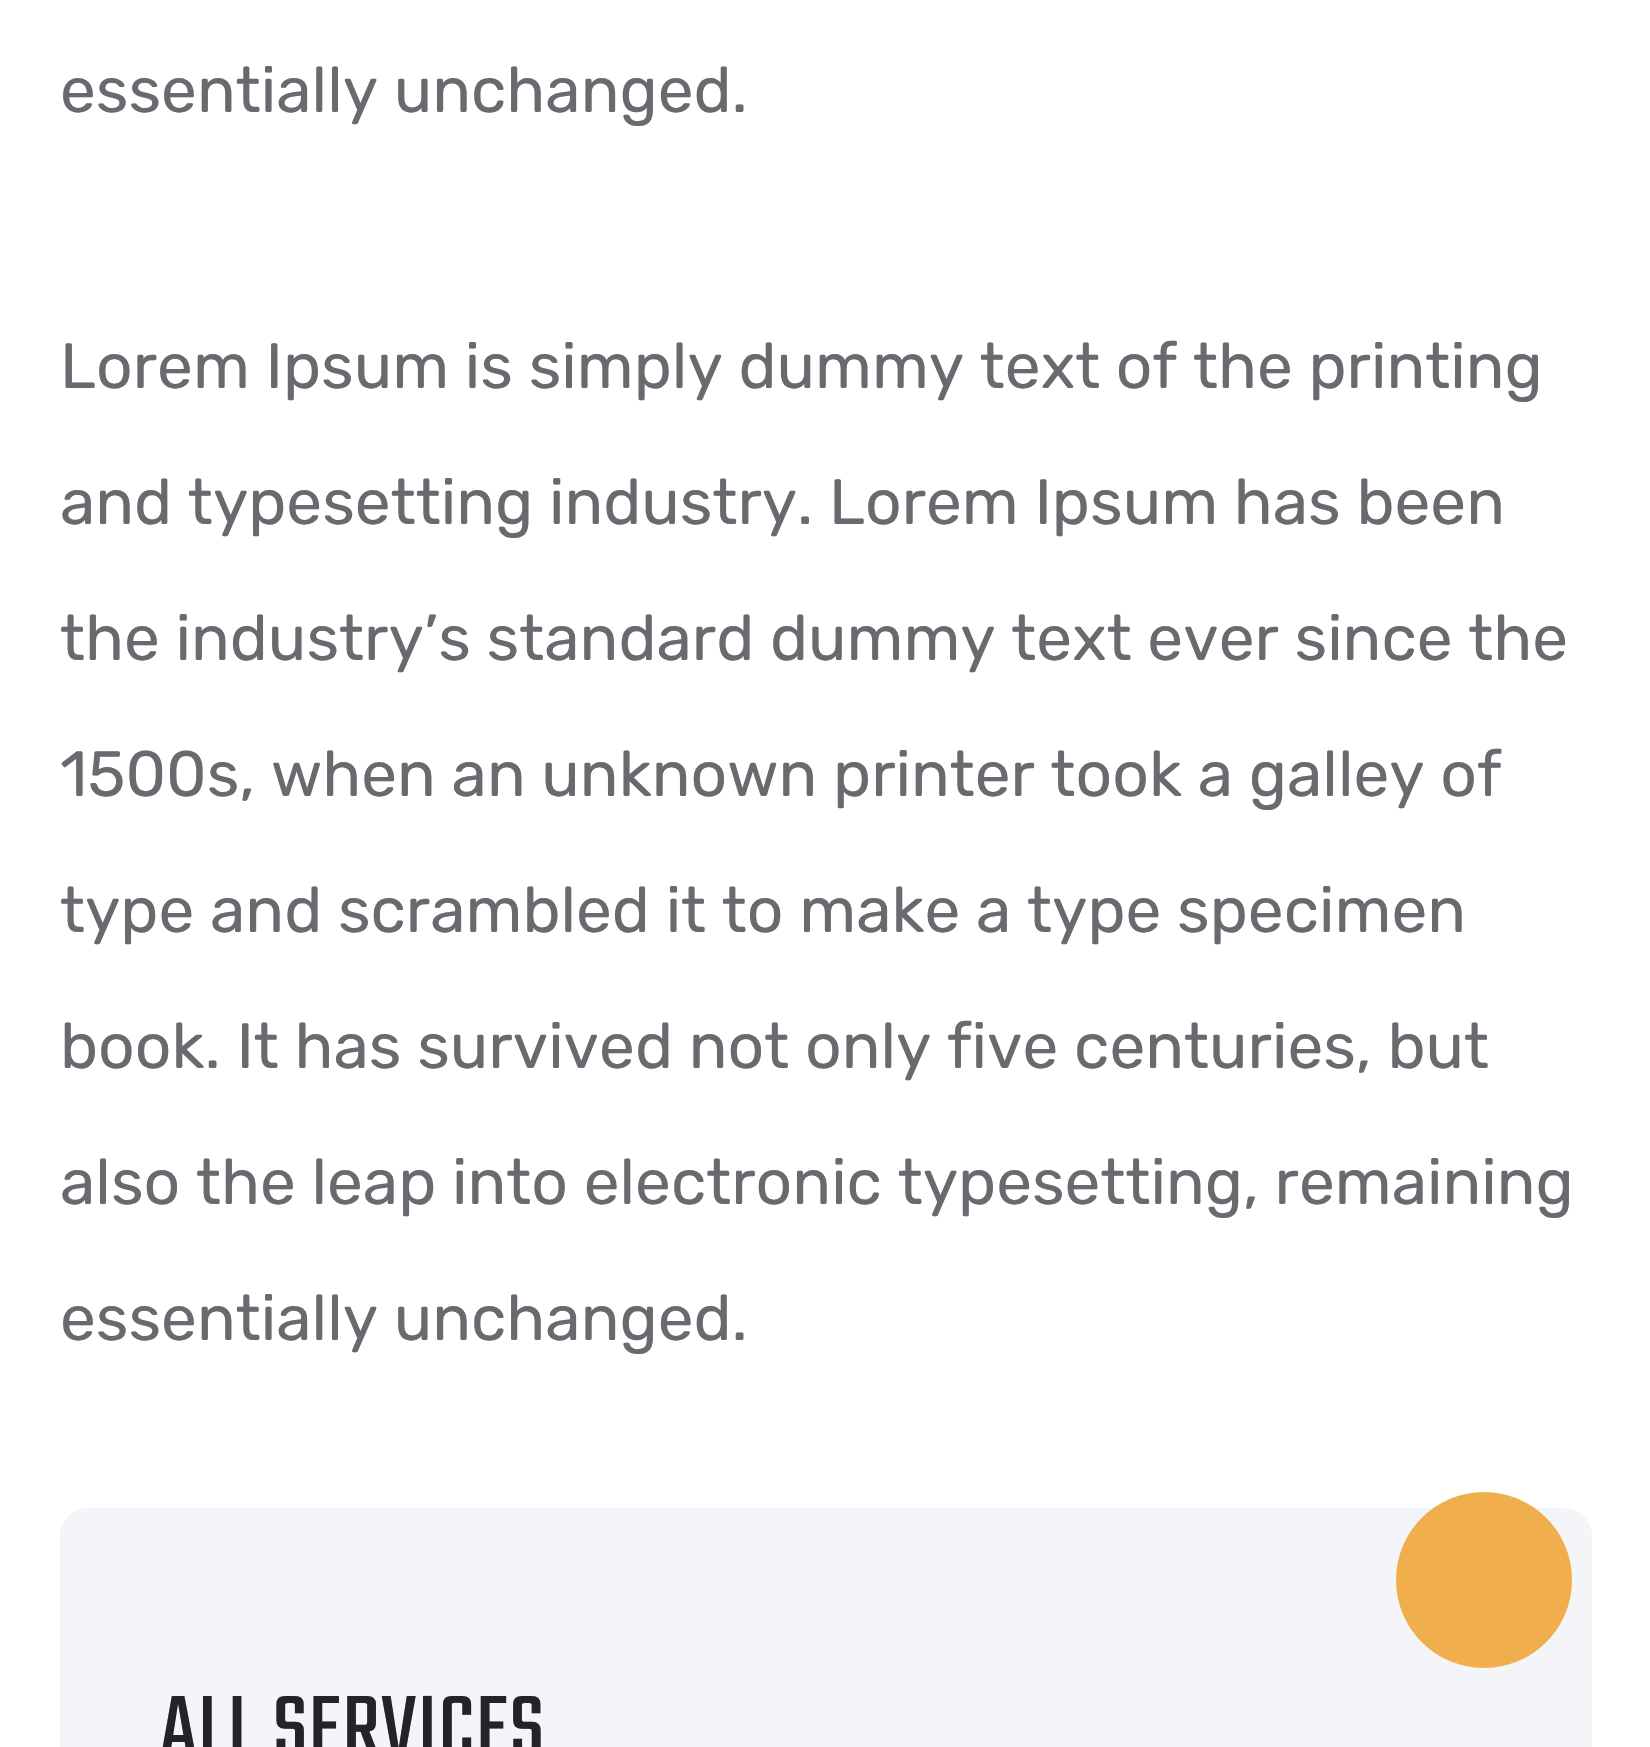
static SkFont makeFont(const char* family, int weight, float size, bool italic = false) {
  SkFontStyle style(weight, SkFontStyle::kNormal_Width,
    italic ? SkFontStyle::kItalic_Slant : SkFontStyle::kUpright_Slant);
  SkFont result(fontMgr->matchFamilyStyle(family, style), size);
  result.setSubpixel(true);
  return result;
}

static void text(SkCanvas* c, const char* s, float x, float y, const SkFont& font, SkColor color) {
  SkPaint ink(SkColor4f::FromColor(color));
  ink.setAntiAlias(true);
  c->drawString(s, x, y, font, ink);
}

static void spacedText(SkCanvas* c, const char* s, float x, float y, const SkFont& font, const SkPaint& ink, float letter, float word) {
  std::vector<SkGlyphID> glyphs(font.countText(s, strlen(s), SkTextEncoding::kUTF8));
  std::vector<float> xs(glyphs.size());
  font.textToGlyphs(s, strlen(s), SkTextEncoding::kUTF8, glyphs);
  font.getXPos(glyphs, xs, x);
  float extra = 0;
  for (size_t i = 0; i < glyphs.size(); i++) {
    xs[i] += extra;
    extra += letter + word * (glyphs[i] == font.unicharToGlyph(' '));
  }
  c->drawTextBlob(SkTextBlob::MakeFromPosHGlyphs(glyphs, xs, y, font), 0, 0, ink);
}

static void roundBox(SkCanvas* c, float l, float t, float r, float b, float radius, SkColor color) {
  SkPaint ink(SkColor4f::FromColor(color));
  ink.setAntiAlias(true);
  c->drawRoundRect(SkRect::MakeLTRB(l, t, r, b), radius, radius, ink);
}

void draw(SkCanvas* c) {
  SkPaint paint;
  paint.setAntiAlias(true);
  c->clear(0xffffffff);
  SkFont face1 = makeFont("Rubik", 400, 64);
  text(c, "essentially unchanged.", 60, 112, face1, 0xff686a6f);
  text(c, "Lorem Ipsum is simply dummy text of the printing", 60, 388, face1, 0xff686a6f);
  text(c, "and typesetting industry. Lorem Ipsum has been", 60, 524, face1, 0xff686a6f);
  text(c, "the industry’s standard dummy text ever since the", 60, 660, face1, 0xff686a6f);
  text(c, "1500s, when an unknown printer took a galley of", 60, 796, face1, 0xff686a6f);
  text(c, "type and scrambled it to make a type specimen", 60, 932, face1, 0xff686a6f);
  text(c, "book. It has survived not only five centuries, but", 60, 1068, face1, 0xff686a6f);
  text(c, "also the leap into electronic typesetting, remaining", 60, 1204, face1, 0xff686a6f);
  text(c, "essentially unchanged.", 60, 1340, face1, 0xff686a6f);
  roundBox(c, 60, 1508, 1592, 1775, 28, 0xfff4f5f8);
  SkFont face2 = makeFont("Teko", 400, 96);
  paint.setColor(0xff222429);
  spacedText(c, "ALL SERVICES", 160, 1756, face2, paint, 1, 0);
  paint.setColor(0xfff0af4c);
  c->drawCircle(1484, 1580, 88, paint);
}
